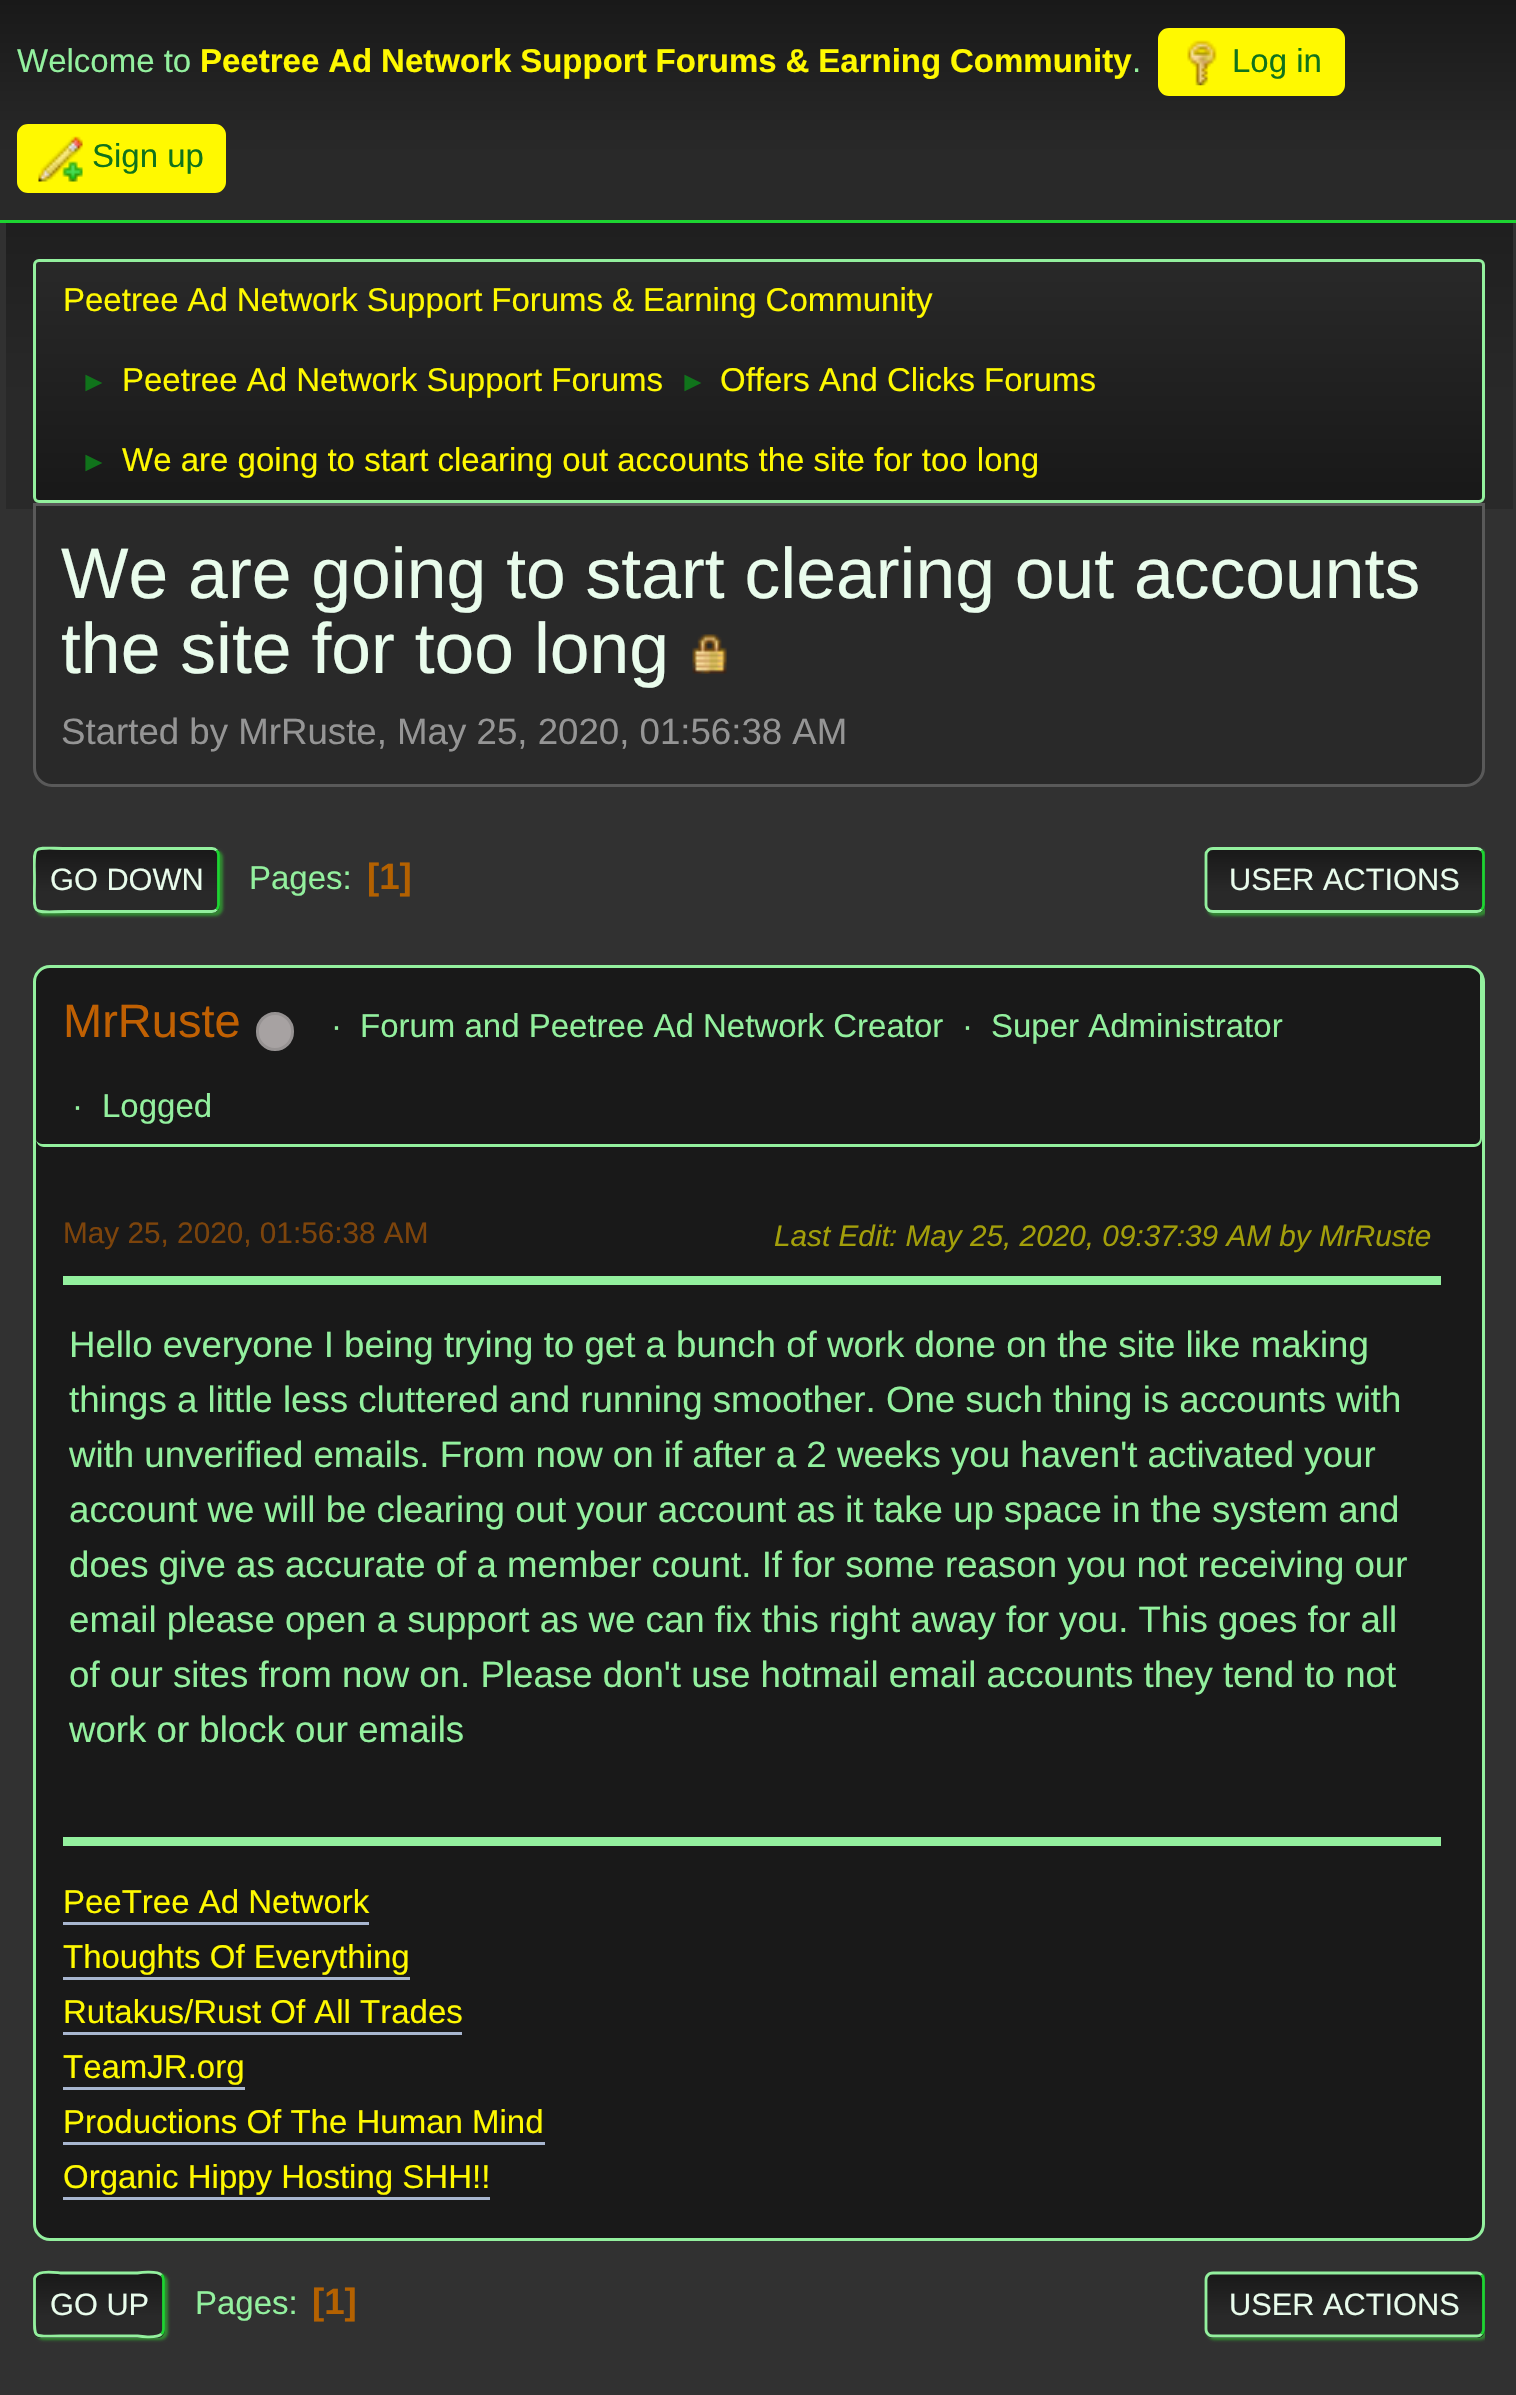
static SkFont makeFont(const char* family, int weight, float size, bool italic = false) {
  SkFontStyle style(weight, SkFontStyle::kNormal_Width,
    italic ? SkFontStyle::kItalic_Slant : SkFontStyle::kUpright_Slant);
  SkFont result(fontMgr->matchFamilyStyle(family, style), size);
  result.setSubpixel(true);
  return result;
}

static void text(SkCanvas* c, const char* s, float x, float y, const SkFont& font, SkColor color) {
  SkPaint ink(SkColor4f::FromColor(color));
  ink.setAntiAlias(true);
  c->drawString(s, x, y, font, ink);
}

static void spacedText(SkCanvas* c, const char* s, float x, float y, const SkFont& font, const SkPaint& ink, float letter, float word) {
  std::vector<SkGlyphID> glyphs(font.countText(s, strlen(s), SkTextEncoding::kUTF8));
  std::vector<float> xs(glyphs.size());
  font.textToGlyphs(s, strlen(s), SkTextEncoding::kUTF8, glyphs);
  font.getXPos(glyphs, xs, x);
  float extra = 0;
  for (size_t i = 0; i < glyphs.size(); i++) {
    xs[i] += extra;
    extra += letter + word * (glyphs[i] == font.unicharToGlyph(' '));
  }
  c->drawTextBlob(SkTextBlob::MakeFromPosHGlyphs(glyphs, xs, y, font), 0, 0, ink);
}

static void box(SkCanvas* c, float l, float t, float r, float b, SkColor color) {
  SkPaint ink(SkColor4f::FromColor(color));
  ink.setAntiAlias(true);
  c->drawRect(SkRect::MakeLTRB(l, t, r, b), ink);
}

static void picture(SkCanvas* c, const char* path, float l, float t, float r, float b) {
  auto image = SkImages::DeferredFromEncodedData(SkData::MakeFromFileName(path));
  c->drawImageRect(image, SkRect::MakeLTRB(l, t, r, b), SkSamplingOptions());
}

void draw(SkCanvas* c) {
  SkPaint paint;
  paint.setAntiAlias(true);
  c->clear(0xff313131);
  {
    const SkColor colors[] = {0xff191919, 0xff292929};
    const float stops[] = {0, 0.7f};
    const SkPoint ends[] = {{759, 0}, {759, 220}};
    paint.setShader(SkGradientShader::MakeLinear(ends, colors, stops, 2, SkTileMode::kClamp));
    paint.setAlpha(255);
  }
  c->drawRect(SkRect::MakeLTRB(0, 0, 1516, 220), paint);
  box(c, 0, 220, 1516, 223, 0xff1dd431);
  SkFont face1 = makeFont("Liberation Sans", 400, 33);
  text(c, "Welcome to", 17, 72, face1, 0xff93f09e);
  SkFont face2 = makeFont("Liberation Sans", 700, 33);
  paint.setShader(nullptr);
  paint.setColor(0xfffff900);
  spacedText(c, "Peetree Ad Network Support Forums & Earning Community", 200, 72, face2, paint, 0, -0.25f);
  text(c, ".", 1132, 72, face1, 0xff93f09e);
  c->drawRoundRect(SkRect::MakeLTRB(1159.5f, 29.5f, 1343.5f, 94.5f), 9.5f, 9.5f, paint);
  paint.setStyle(SkPaint::kStroke_Style);
  paint.setStrokeWidth(3);
  c->drawRoundRect(SkRect::MakeLTRB(1159.5f, 29.5f, 1343.5f, 94.5f), 9.5f, 9.5f, paint);
  picture(c, "img_01.png", 1187, 40, 1217, 86);
  text(c, "Log in", 1232, 72, face1, 0xff10731b);
  paint.setStyle(SkPaint::kFill_Style);
  c->drawRoundRect(SkRect::MakeLTRB(18.5f, 125.5f, 224.5f, 191.5f), 9.5f, 9.5f, paint);
  paint.setStyle(SkPaint::kStroke_Style);
  c->drawRoundRect(SkRect::MakeLTRB(18.5f, 125.5f, 224.5f, 191.5f), 9.5f, 9.5f, paint);
  picture(c, "img_02.png", 38, 136, 83, 182);
  text(c, "Sign up", 92, 167, face1, 0xff10731b);
  paint.setStyle(SkPaint::kFill_Style);
  {
    const SkColor colors[] = {0xff191919, 0xff292929};
    const float stops[] = {0, 0.7f};
    const SkPoint ends[] = {{759, 129}, {759, 509}};
    paint.setShader(SkGradientShader::MakeLinear(ends, colors, stops, 2, SkTileMode::kClamp));
    paint.setAlpha(255);
  }
  c->drawRect(SkRect::MakeLTRB(6, 223, 1513, 509), paint);
  c->save();
  c->clipPath(SkPathBuilder().moveTo(39, 259).lineTo(1479, 259).cubicTo(1482.5f, 259, 1485, 261.5f, 1485, 265).lineTo(1485, 497).cubicTo(1485, 500.5f, 1482.5f, 503, 1479, 503).lineTo(39, 503).cubicTo(35.5f, 503, 33, 500.5f, 33, 497).lineTo(33, 265).cubicTo(33, 261.5f, 35.5f, 259, 39, 259).close().detach(), true);
  {
    const SkColor colors[] = {0xff292929, 0xff191919};
    const float stops[] = {0, 0.95f};
    const SkPoint ends[] = {{759, 261}, {759, 501}};
    paint.setShader(SkGradientShader::MakeLinear(ends, colors, stops, 2, SkTileMode::kClamp));
    paint.setAlpha(255);
  }
  c->drawRect(SkRect::MakeLTRB(33, 261, 1485, 501), paint);
  c->restore();
  paint.setStyle(SkPaint::kStroke_Style);
  paint.setShader(nullptr);
  paint.setColor(0xff93f09e);
  c->drawRoundRect(SkRect::MakeLTRB(34.5f, 260.5f, 1483.5f, 501.5f), 4.5f, 4.5f, paint);
  paint.setStyle(SkPaint::kFill_Style);
  paint.setColor(0xfffff900);
  spacedText(c, "Peetree Ad Network Support Forums & Earning Community", 63, 311, face1, paint, 0, -0.25f);
  SkFont face3 = makeFont("Liberation Sans", 400, 28);
  text(c, "►", 80, 391, face3, 0xff10731b);
  text(c, "Peetree Ad Network Support Forums", 122, 391, face1, 0xfffff900);
  text(c, "►", 679, 391, face3, 0xff10731b);
  text(c, "Offers And Clicks Forums", 720, 391, face1, 0xfffff900);
  text(c, "►", 80, 471, face3, 0xff10731b);
  text(c, "We are going to start clearing out accounts the site for too long", 122, 471, face1, 0xfffff900);
  paint.setColor(0xff292929);
  c->drawPath(SkPathBuilder().moveTo(34.5f, 504.5f).lineTo(1483.5f, 504.5f).lineTo(1483.5f, 768).cubicTo(1483.5f, 777.5f, 1475.5f, 785.5f, 1466, 785.5f).lineTo(52, 785.5f).cubicTo(42.5f, 785.5f, 34.5f, 777.5f, 34.5f, 768).close().detach(), paint);
  paint.setStyle(SkPaint::kStroke_Style);
  paint.setColor(0xff595959);
  c->drawPath(SkPathBuilder().moveTo(34.5f, 504.5f).lineTo(1483.5f, 504.5f).lineTo(1483.5f, 768).cubicTo(1483.5f, 777.5f, 1475.5f, 785.5f, 1466, 785.5f).lineTo(52, 785.5f).cubicTo(42.5f, 785.5f, 34.5f, 777.5f, 34.5f, 768).close().detach(), paint);
  SkFont face4 = makeFont("Liberation Sans", 400, 71.5f);
  text(c, "We are going to start clearing out accounts", 61, 598, face4, 0xffe9fcec);
  text(c, "the site for too long", 61, 673, face4, 0xffe9fcec);
  picture(c, "img_03.png", 692, 634, 727, 674);
  SkFont face5 = makeFont("Liberation Sans", 400, 36.65f);
  text(c, "Started by MrRuste, May 25, 2020, 01:56:38 AM", 61, 744, face5, 0xff959595);
  paint.setStyle(SkPaint::kFill_Style);
  paint.setColor(0x9132cd32);
  paint.setMaskFilter(SkMaskFilter::MakeBlur(kNormal_SkBlurStyle, 1.5f));
  c->drawRoundRect(SkRect::MakeLTRB(36, 850, 223, 916), 8, 8, paint);
  paint.setMaskFilter(nullptr);
  c->save();
  c->clipPath(SkPathBuilder().moveTo(41, 847).lineTo(212, 847).cubicTo(216.5f, 847, 220, 850.5f, 220, 855).lineTo(220, 905).cubicTo(220, 909.5f, 216.5f, 913, 212, 913).lineTo(41, 913).cubicTo(36.5f, 913, 33, 909.5f, 33, 905).lineTo(33, 855).cubicTo(33, 850.5f, 36.5f, 847, 41, 847).close().detach(), true);
  {
    const SkColor colors[] = {0xff191919, 0xff292929};
    const float stops[] = {0, 0.7f};
    const SkPoint ends[] = {{127, 789}, {127, 850}};
    paint.setShader(SkGradientShader::MakeLinear(ends, colors, stops, 2, SkTileMode::kClamp));
    paint.setAlpha(255);
  }
  c->drawRect(SkRect::MakeLTRB(33, 847, 220, 850), paint);
  {
    const SkColor colors[] = {0xff191919, 0xff292929};
    const float stops[] = {0, 0.7f};
    const SkPoint ends[] = {{127, 850}, {127, 910}};
    paint.setShader(SkGradientShader::MakeLinear(ends, colors, stops, 2, SkTileMode::kClamp));
    paint.setAlpha(255);
  }
  c->drawRect(SkRect::MakeLTRB(33, 850, 220, 910), paint);
  {
    const SkColor colors[] = {0xff191919, 0xff292929};
    const float stops[] = {0, 0.7f};
    const SkPoint ends[] = {{127, 910}, {127, 971}};
    paint.setShader(SkGradientShader::MakeLinear(ends, colors, stops, 2, SkTileMode::kClamp));
    paint.setAlpha(255);
  }
  c->drawRect(SkRect::MakeLTRB(33, 910, 220, 913), paint);
  c->restore();
  paint.setStyle(SkPaint::kStroke_Style);
  paint.setStrokeWidth(2.8f);
  paint.setShader(nullptr);
  paint.setColor(0xff1dd431);
  c->drawPath(SkPathBuilder().moveTo(216.5f, 850.5f).cubicTo(218, 851.5f, 218.5f, 853.5f, 218.5f, 855).lineTo(218.5f, 905).cubicTo(218.5f, 906.5f, 218, 908.5f, 216.5f, 909.5f).detach(), paint);
  c->save();
  c->clipRect(SkRect::MakeLTRB(33, 828, 1485, 932));
  paint.setColor(0xff93f09e);
  c->drawPath(SkPathBuilder().moveTo(216.5f, 909.5f).cubicTo(215.5f, 911, 213.5f, 911.5f, 212, 911.5f).lineTo(69.5f, 911.5f).cubicTo(29, 911.5f, 34.5f, 918, 34.5f, 880).cubicTo(34.5f, 842, 29, 848.5f, 69.5f, 848.5f).lineTo(212, 848.5f).cubicTo(213.5f, 848.5f, 215.5f, 849, 216.5f, 850.5f).detach(), paint);
  c->restore();
  SkFont face6 = makeFont("Liberation Sans", 400, 30.75f);
  text(c, "GO DOWN", 50, 890, face6, 0xffe9fcec);
  text(c, "Pages:", 249, 889, face1, 0xff93f09e);
  SkFont face7 = makeFont("Liberation Sans", 700, 36.65f);
  text(c, "[1]", 367, 889, face7, 0xffb46100);
  c->save();
  c->clipRect(SkRect::MakeLTRB(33, 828, 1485, 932));
  paint.setStyle(SkPaint::kFill_Style);
  paint.setColor(0x9132cd32);
  paint.setMaskFilter(SkMaskFilter::MakeBlur(kNormal_SkBlurStyle, 1.5f));
  c->drawRoundRect(SkRect::MakeLTRB(1207, 850, 1488, 916), 8, 8, paint);
  paint.setMaskFilter(nullptr);
  c->restore();
  c->save();
  c->clipPath(SkPathBuilder().moveTo(1213, 847).lineTo(1477, 847).cubicTo(1481.5f, 847, 1485, 850.5f, 1485, 855).lineTo(1485, 905).cubicTo(1485, 909.5f, 1481.5f, 913, 1477, 913).lineTo(1213, 913).cubicTo(1208.5f, 913, 1205, 909.5f, 1205, 905).lineTo(1205, 855).cubicTo(1205, 850.5f, 1208.5f, 847, 1213, 847).close().detach(), true);
  {
    const SkColor colors[] = {0xff191919, 0xff292929};
    const float stops[] = {0, 0.7f};
    const SkPoint ends[] = {{1345, 789}, {1345, 850}};
    paint.setShader(SkGradientShader::MakeLinear(ends, colors, stops, 2, SkTileMode::kClamp));
    paint.setAlpha(255);
  }
  c->drawRect(SkRect::MakeLTRB(1205, 847, 1485, 850), paint);
  {
    const SkColor colors[] = {0xff191919, 0xff292929};
    const float stops[] = {0, 0.7f};
    const SkPoint ends[] = {{1345, 850}, {1345, 910}};
    paint.setShader(SkGradientShader::MakeLinear(ends, colors, stops, 2, SkTileMode::kClamp));
    paint.setAlpha(255);
  }
  c->drawRect(SkRect::MakeLTRB(1205, 850, 1485, 910), paint);
  {
    const SkColor colors[] = {0xff191919, 0xff292929};
    const float stops[] = {0, 0.7f};
    const SkPoint ends[] = {{1345, 910}, {1345, 971}};
    paint.setShader(SkGradientShader::MakeLinear(ends, colors, stops, 2, SkTileMode::kClamp));
    paint.setAlpha(255);
  }
  c->drawRect(SkRect::MakeLTRB(1205, 910, 1485, 913), paint);
  c->restore();
  paint.setStyle(SkPaint::kStroke_Style);
  paint.setShader(nullptr);
  paint.setColor(0xff1dd431);
  c->drawPath(SkPathBuilder().moveTo(1481.5f, 850.5f).cubicTo(1483, 851.5f, 1483.5f, 853.5f, 1483.5f, 855).lineTo(1483.5f, 905).cubicTo(1483.5f, 906.5f, 1483, 908.5f, 1481.5f, 909.5f).detach(), paint);
  paint.setColor(0xff93f09e);
  c->drawPath(SkPathBuilder().moveTo(1481.5f, 909.5f).cubicTo(1480.5f, 911, 1478.5f, 911.5f, 1477, 911.5f).lineTo(1213, 911.5f).cubicTo(1211, 911.5f, 1209, 911, 1208, 909.5f).cubicTo(1206.5f, 908.5f, 1206, 906.5f, 1206, 905).lineTo(1206, 855).cubicTo(1206, 853.5f, 1206.5f, 851.5f, 1208, 850.5f).cubicTo(1209, 849, 1211, 848.5f, 1213, 848.5f).lineTo(1477, 848.5f).cubicTo(1478.5f, 848.5f, 1480.5f, 849, 1481.5f, 850.5f).detach(), paint);
  text(c, "USER ACTIONS", 1229, 890, face6, 0xffe9fcec);
  paint.setStyle(SkPaint::kFill_Style);
  paint.setColor(0xff191919);
  c->drawRoundRect(SkRect::MakeLTRB(34.5f, 966.5f, 1483.5f, 2239.5f), 15.5f, 15.5f, paint);
  paint.setStyle(SkPaint::kStroke_Style);
  paint.setStrokeWidth(3);
  paint.setColor(0xff93f09e);
  c->drawRoundRect(SkRect::MakeLTRB(34.5f, 966.5f, 1483.5f, 2239.5f), 15.5f, 15.5f, paint);
  paint.setStyle(SkPaint::kFill_Style);
  c->drawPath(SkPathBuilder(SkPathFillType::kEvenOdd).moveTo(44, 968).lineTo(1474, 968).cubicTo(1479, 968, 1482, 972, 1482, 976).lineTo(1482, 1138).cubicTo(1482, 1143, 1479, 1147, 1474, 1147).lineTo(44, 1147).cubicTo(39, 1147, 36, 1143, 36, 1138).lineTo(36, 976).cubicTo(36, 972, 39, 968, 44, 968).close().moveTo(44, 968).lineTo(1474, 968).cubicTo(1477, 968, 1480, 972, 1480, 976).lineTo(1480, 1138).cubicTo(1480, 1142, 1477, 1144, 1474, 1144).lineTo(44, 1144).cubicTo(39, 1144, 36, 1142, 36, 1138).lineTo(36, 976).cubicTo(36, 972, 39, 968, 44, 968).close().detach(), paint);
  SkFont face8 = makeFont("Liberation Sans", 400, 47);
  text(c, "MrRuste", 63, 1037, face8, 0xffc06002);
  paint.setColor(0xffa7a2a2);
  c->drawRoundRect(SkRect::MakeLTRB(257.5f, 1013.5f, 292.5f, 1049.5f), 17.5f, 17.5f, paint);
  paint.setStyle(SkPaint::kStroke_Style);
  paint.setColor(0xff969292);
  c->drawRoundRect(SkRect::MakeLTRB(257.5f, 1013.5f, 292.5f, 1049.5f), 17.5f, 17.5f, paint);
  text(c, "·", 331, 1037, face1, 0xff93f09e);
  text(c, "Forum and Peetree Ad Network Creator", 360, 1037, face1, 0xff93f09e);
  text(c, "·", 962, 1037, face1, 0xff93f09e);
  text(c, "Super Administrator", 991, 1037, face1, 0xff93f09e);
  text(c, "·", 72, 1117, face1, 0xff93f09e);
  text(c, "Logged", 102, 1117, face1, 0xff93f09e);
  SkFont face9 = makeFont("Liberation Sans", 400, 29.75f);
  text(c, "May 25, 2020, 01:56:38 AM", 63, 1243, face9, 0xff7d440b);
  SkFont face10 = makeFont("Liberation Sans", 400, 29.75f, true);
  text(c, "Last Edit", 774, 1246, face10, 0xffa39f0a);
  text(c, ": May 25, 2020, 09:37:39 AM by MrRuste", 889, 1246, face10, 0xffa39f0a);
  box(c, 63, 1276, 1441, 1285, 0xff93f09e);
  text(c, "Hello everyone I being trying to get a bunch of work done on the site like making", 69, 1357, face5, 0xff93f09e);
  text(c, "things a little less cluttered and running smoother. One such thing is accounts with", 69, 1412, face5, 0xff93f09e);
  text(c, "with unverified emails. From now on if after a 2 weeks you haven't activated your", 69, 1467, face5, 0xff93f09e);
  text(c, "account we will be clearing out your account as it take up space in the system and", 69, 1522, face5, 0xff93f09e);
  text(c, "does give as accurate of a member count. If for some reason you not receiving our", 69, 1577, face5, 0xff93f09e);
  text(c, "email please open a support as we can fix this right away for you. This goes for all", 69, 1632, face5, 0xff93f09e);
  text(c, "of our sites from now on. Please don't use hotmail email accounts they tend to not", 69, 1687, face5, 0xff93f09e);
  text(c, "work or block our emails", 69, 1742, face5, 0xff93f09e);
  box(c, 63, 1837, 1441, 1846, 0xff93f09e);
  text(c, "PeeTree Ad Network", 63, 1913, face1, 0xfffff900);
  box(c, 63, 1922, 369, 1925, 0xffa8b6cf);
  text(c, "Thoughts Of Everything", 63, 1968, face1, 0xfffff900);
  box(c, 63, 1977, 410, 1980, 0xffa8b6cf);
  text(c, "Rutakus/Rust Of All Trades", 63, 2023, face1, 0xfffff900);
  box(c, 63, 2032, 462, 2035, 0xffa8b6cf);
  text(c, "TeamJR.org", 63, 2078, face1, 0xfffff900);
  box(c, 63, 2087, 245, 2090, 0xffa8b6cf);
  text(c, "Productions Of The Human Mind", 63, 2133, face1, 0xfffff900);
  box(c, 63, 2142, 545, 2145, 0xffa8b6cf);
  text(c, "Organic Hippy Hosting SHH!!", 63, 2188, face1, 0xfffff900);
  box(c, 63, 2197, 490, 2200, 0xffa8b6cf);
  paint.setStyle(SkPaint::kFill_Style);
  paint.setColor(0x9132cd32);
  paint.setMaskFilter(SkMaskFilter::MakeBlur(kNormal_SkBlurStyle, 1.5f));
  c->drawRoundRect(SkRect::MakeLTRB(36, 2274, 168, 2340), 8, 8, paint);
  paint.setMaskFilter(nullptr);
  c->save();
  c->clipPath(SkPathBuilder().moveTo(41, 2272).lineTo(157, 2272).cubicTo(161.5f, 2272, 165, 2275.5f, 165, 2280).lineTo(165, 2330).cubicTo(165, 2334.5f, 161.5f, 2338, 157, 2338).lineTo(41, 2338).cubicTo(36.5f, 2338, 33, 2334.5f, 33, 2330).lineTo(33, 2280).cubicTo(33, 2275.5f, 36.5f, 2272, 41, 2272).close().detach(), true);
  {
    const SkColor colors[] = {0xff191919, 0xff292929};
    const float stops[] = {0, 0.7f};
    const SkPoint ends[] = {{99, 2214}, {99, 2274}};
    paint.setShader(SkGradientShader::MakeLinear(ends, colors, stops, 2, SkTileMode::kClamp));
    paint.setAlpha(255);
  }
  c->drawRect(SkRect::MakeLTRB(33, 2272, 165, 2274), paint);
  {
    const SkColor colors[] = {0xff191919, 0xff292929};
    const float stops[] = {0, 0.7f};
    const SkPoint ends[] = {{99, 2274}, {99, 2335}};
    paint.setShader(SkGradientShader::MakeLinear(ends, colors, stops, 2, SkTileMode::kClamp));
    paint.setAlpha(255);
  }
  c->drawRect(SkRect::MakeLTRB(33, 2274, 165, 2335), paint);
  {
    const SkColor colors[] = {0xff191919, 0xff292929};
    const float stops[] = {0, 0.7f};
    const SkPoint ends[] = {{99, 2335}, {99, 2395}};
    paint.setShader(SkGradientShader::MakeLinear(ends, colors, stops, 2, SkTileMode::kClamp));
    paint.setAlpha(255);
  }
  c->drawRect(SkRect::MakeLTRB(33, 2335, 165, 2338), paint);
  c->restore();
  paint.setStyle(SkPaint::kStroke_Style);
  paint.setStrokeWidth(2.8f);
  paint.setShader(nullptr);
  paint.setColor(0xff1dd431);
  c->drawPath(SkPathBuilder().moveTo(161.5f, 2275).cubicTo(163, 2276, 163.5f, 2278, 163.5f, 2280).lineTo(163.5f, 2329).cubicTo(163.5f, 2331, 163, 2333, 161.5f, 2334).detach(), paint);
  paint.setColor(0xff93f09e);
  c->drawPath(SkPathBuilder().moveTo(161.5f, 2334).cubicTo(156.5f, 2339, 137.5f, 2336, 137.5f, 2336).lineTo(60.5f, 2336).cubicTo(32, 2336, 34.5f, 2340, 34.5f, 2313).lineTo(34.5f, 2278.5f).cubicTo(36.5f, 2268.5f, 57.5f, 2273, 60.5f, 2273).lineTo(137.5f, 2273).cubicTo(137.5f, 2273, 156.5f, 2270, 161.5f, 2275).detach(), paint);
  text(c, "GO UP", 50, 2315, face6, 0xffe9fcec);
  text(c, "Pages:", 195, 2314, face1, 0xff93f09e);
  text(c, "[1]", 312, 2314, face7, 0xffb46100);
  c->save();
  c->clipRect(SkRect::MakeLTRB(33, 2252, 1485, 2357));
  paint.setStyle(SkPaint::kFill_Style);
  paint.setColor(0x9132cd32);
  paint.setMaskFilter(SkMaskFilter::MakeBlur(kNormal_SkBlurStyle, 1.5f));
  c->drawRoundRect(SkRect::MakeLTRB(1207, 2274, 1488, 2340), 8, 8, paint);
  paint.setMaskFilter(nullptr);
  c->restore();
  c->save();
  c->clipPath(SkPathBuilder().moveTo(1213, 2272).lineTo(1477, 2272).cubicTo(1481.5f, 2272, 1485, 2275.5f, 1485, 2280).lineTo(1485, 2330).cubicTo(1485, 2334.5f, 1481.5f, 2338, 1477, 2338).lineTo(1213, 2338).cubicTo(1208.5f, 2338, 1205, 2334.5f, 1205, 2330).lineTo(1205, 2280).cubicTo(1205, 2275.5f, 1208.5f, 2272, 1213, 2272).close().detach(), true);
  {
    const SkColor colors[] = {0xff191919, 0xff292929};
    const float stops[] = {0, 0.7f};
    const SkPoint ends[] = {{1345, 2274}, {1345, 2335}};
    paint.setShader(SkGradientShader::MakeLinear(ends, colors, stops, 2, SkTileMode::kClamp));
    paint.setAlpha(255);
  }
  c->drawRect(SkRect::MakeLTRB(1205, 2274, 1485, 2335), paint);
  {
    const SkColor colors[] = {0xff191919, 0xff292929};
    const float stops[] = {0, 0.7f};
    const SkPoint ends[] = {{1345, 2335}, {1345, 2395}};
    paint.setShader(SkGradientShader::MakeLinear(ends, colors, stops, 2, SkTileMode::kClamp));
    paint.setAlpha(255);
  }
  c->drawRect(SkRect::MakeLTRB(1205, 2335, 1485, 2338), paint);
  c->restore();
  paint.setStyle(SkPaint::kStroke_Style);
  paint.setShader(nullptr);
  paint.setColor(0xff1dd431);
  c->drawPath(SkPathBuilder().moveTo(1481.5f, 2275).cubicTo(1483, 2276, 1483.5f, 2278, 1483.5f, 2280).lineTo(1483.5f, 2329).cubicTo(1483.5f, 2331, 1483, 2333, 1481.5f, 2334).detach(), paint);
  paint.setColor(0xff93f09e);
  c->drawPath(SkPathBuilder().moveTo(1481.5f, 2334).cubicTo(1480.5f, 2335.5f, 1478.5f, 2336, 1477, 2336).lineTo(1213, 2336).cubicTo(1211, 2336, 1209, 2335.5f, 1208, 2334).cubicTo(1206.5f, 2333, 1206, 2331, 1206, 2329).lineTo(1206, 2280).cubicTo(1206, 2278, 1206.5f, 2276, 1208, 2275).cubicTo(1209, 2273.5f, 1211, 2273, 1213, 2273).lineTo(1477, 2273).cubicTo(1478.5f, 2273, 1480.5f, 2273.5f, 1481.5f, 2275).detach(), paint);
  text(c, "USER ACTIONS", 1229, 2315, face6, 0xffe9fcec);
}
